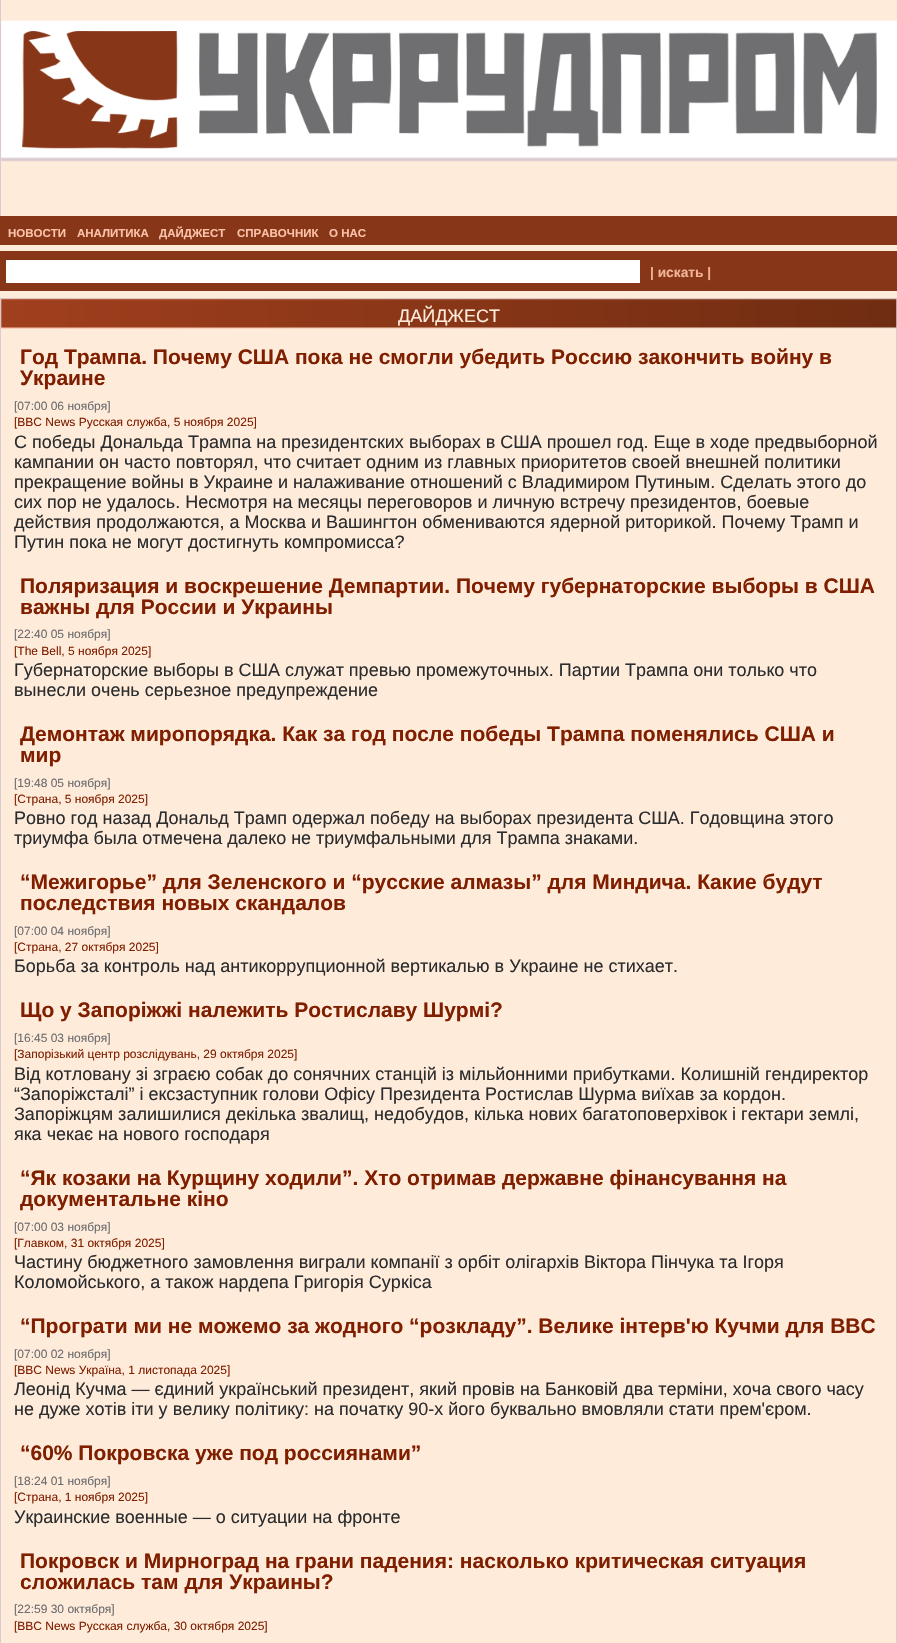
static SkFont makeFont(const char* family, int weight, float size, bool italic = false) {
  SkFontStyle style(weight, SkFontStyle::kNormal_Width,
    italic ? SkFontStyle::kItalic_Slant : SkFontStyle::kUpright_Slant);
  SkFont result(fontMgr->matchFamilyStyle(family, style), size);
  result.setSubpixel(true);
  return result;
}

static void text(SkCanvas* c, const char* s, float x, float y, const SkFont& font, SkColor color) {
  SkPaint ink(SkColor4f::FromColor(color));
  ink.setAntiAlias(true);
  c->drawString(s, x, y, font, ink);
}

static void box(SkCanvas* c, float l, float t, float r, float b, SkColor color) {
  SkPaint ink(SkColor4f::FromColor(color));
  ink.setAntiAlias(true);
  c->drawRect(SkRect::MakeLTRB(l, t, r, b), ink);
}

static void picture(SkCanvas* c, const char* path, float l, float t, float r, float b) {
  auto image = SkImages::DeferredFromEncodedData(SkData::MakeFromFileName(path));
  c->drawImageRect(image, SkRect::MakeLTRB(l, t, r, b), SkSamplingOptions());
}

void draw(SkCanvas* c) {
  SkPaint paint;
  paint.setAntiAlias(true);
  c->clear(0xffffebda);
  box(c, 0, 0, 1, 216, 0xffdbcbd1);
  picture(c, "img_01.png", 1, 20, 897, 162);
  box(c, 0, 216, 897, 245, 0xff873617);
  SkFont face1 = makeFont("Liberation Sans", 700, 11.5f);
  text(c, "НОВОСТИ", 8, 237, face1, 0xfffbc1a9);
  text(c, "АНАЛИТИКА", 77, 237, face1, 0xfffbc1a9);
  text(c, "ДАЙДЖЕСТ", 159, 237, face1, 0xfffbc1a9);
  text(c, "СПРАВОЧНИК", 237, 237, face1, 0xfffbc1a9);
  text(c, "О НАС", 329, 237, face1, 0xfffbc1a9);
  box(c, 0, 251, 897, 291, 0xff873617);
  box(c, 6, 260, 640, 283, 0xffffffff);
  SkFont face2 = makeFont("Liberation Sans", 700, 13.75f);
  text(c, "| искать |", 650, 277, face2, 0xfff2b397);
  box(c, 0, 298, 897, 299, 0xffdbcbd1);
  box(c, 896, 299, 897, 1643, 0xffdbcbd1);
  box(c, 0, 299, 1, 1643, 0xffdbcbd1);
  picture(c, "img_02.png", 1, 298, 897, 329);
  SkFont face3 = makeFont("Liberation Sans", 400, 18);
  text(c, "ДАЙДЖЕСТ", 398, 322, face3, 0xffffebda);
  SkFont face4 = makeFont("Liberation Sans", 700, 21);
  text(c, "Год Трампа. Почему США пока не смогли убедить Россию закончить войну в", 20, 364, face4, 0xff7f1f00);
  text(c, "Украине", 20, 385, face4, 0xff7f1f00);
  SkFont face5 = makeFont("Liberation Sans", 400, 12);
  text(c, "[07:00 06 ноября]", 14, 410, face5, 0xff6a6c6e);
  text(c, "[BBC News Русская служба, 5 ноября 2025]", 14, 426, face5, 0xff7f1f00);
  text(c, "С победы Дональда Трампа на президентских выборах в США прошел год. Еще в ходе предвыборной", 14, 448, face3, 0xff2a2c2e);
  text(c, "кампании он часто повторял, что считает одним из главных приоритетов своей внешней политики", 14, 468, face3, 0xff2a2c2e);
  text(c, "прекращение войны в Украине и налаживание отношений с Владимиром Путиным. Сделать этого до", 14, 488, face3, 0xff2a2c2e);
  text(c, "сих пор не удалось. Несмотря на месяцы переговоров и личную встречу президентов, боевые", 14, 508, face3, 0xff2a2c2e);
  text(c, "действия продолжаются, а Москва и Вашингтон обмениваются ядерной риторикой. Почему Трамп и", 14, 528, face3, 0xff2a2c2e);
  text(c, "Путин пока не могут достигнуть компромисса?", 14, 548, face3, 0xff2a2c2e);
  text(c, "Поляризация и воскрешение Демпартии. Почему губернаторские выборы в США", 20, 593, face4, 0xff7f1f00);
  text(c, "важны для России и Украины", 20, 614, face4, 0xff7f1f00);
  text(c, "[22:40 05 ноября]", 14, 638, face5, 0xff6a6c6e);
  text(c, "[The Bell, 5 ноября 2025]", 14, 655, face5, 0xff7f1f00);
  text(c, "Губернаторские выборы в США служат превью промежуточных. Партии Трампа они только что", 14, 676, face3, 0xff2a2c2e);
  text(c, "вынесли очень серьезное предупреждение", 14, 696, face3, 0xff2a2c2e);
  text(c, "Демонтаж миропорядка. Как за год после победы Трампа поменялись США и", 20, 741, face4, 0xff7f1f00);
  text(c, "мир", 20, 762, face4, 0xff7f1f00);
  text(c, "[19:48 05 ноября]", 14, 787, face5, 0xff6a6c6e);
  text(c, "[Страна, 5 ноября 2025]", 14, 803, face5, 0xff7f1f00);
  text(c, "Ровно год назад Дональд Трамп одержал победу на выборах президента США. Годовщина этого", 14, 824, face3, 0xff2a2c2e);
  text(c, "триумфа была отмечена далеко не триумфальными для Трампа знаками.", 14, 844, face3, 0xff2a2c2e);
  text(c, "“Межигорье” для Зеленского и “русские алмазы” для Миндича. Какие будут", 20, 889, face4, 0xff7f1f00);
  text(c, "последствия новых скандалов", 20, 910, face4, 0xff7f1f00);
  text(c, "[07:00 04 ноября]", 14, 935, face5, 0xff6a6c6e);
  text(c, "[Страна, 27 октября 2025]", 14, 951, face5, 0xff7f1f00);
  text(c, "Борьба за контроль над антикоррупционной вертикалью в Украине не стихает.", 14, 972, face3, 0xff2a2c2e);
  text(c, "Що у Запоріжжі належить Ростиславу Шурмі?", 20, 1017, face4, 0xff7f1f00);
  text(c, "[16:45 03 ноября]", 14, 1042, face5, 0xff6a6c6e);
  text(c, "[Запорізький центр розслідувань, 29 октября 2025]", 14, 1058, face5, 0xff7f1f00);
  text(c, "Від котловану зі зграєю собак до сонячних станцій із мільйонними прибутками. Колишній гендиректор", 14, 1080, face3, 0xff2a2c2e);
  text(c, "“Запоріжсталі” і ексзаступник голови Офісу Президента Ростислав Шурма виїхав за кордон.", 14, 1100, face3, 0xff2a2c2e);
  text(c, "Запоріжцям залишилися декілька звалищ, недобудов, кілька нових багатоповерхівок і гектари землі,", 14, 1120, face3, 0xff2a2c2e);
  text(c, "яка чекає на нового господаря", 14, 1140, face3, 0xff2a2c2e);
  text(c, "“Як козаки на Курщину ходили”. Хто отримав державне фінансування на", 20, 1185, face4, 0xff7f1f00);
  text(c, "документальне кіно", 20, 1206, face4, 0xff7f1f00);
  text(c, "[07:00 03 ноября]", 14, 1231, face5, 0xff6a6c6e);
  text(c, "[Главком, 31 октября 2025]", 14, 1247, face5, 0xff7f1f00);
  text(c, "Частину бюджетного замовлення виграли компанії з орбіт олігархів Віктора Пінчука та Ігоря", 14, 1268, face3, 0xff2a2c2e);
  text(c, "Коломойського, а також нардепа Григорія Суркіса", 14, 1288, face3, 0xff2a2c2e);
  text(c, "“Програти ми не можемо за жодного “розкладу”. Велике інтерв'ю Кучми для ВВС", 20, 1333, face4, 0xff7f1f00);
  text(c, "[07:00 02 ноября]", 14, 1358, face5, 0xff6a6c6e);
  text(c, "[BBC News Україна, 1 листопада 2025]", 14, 1374, face5, 0xff7f1f00);
  text(c, "Леонід Кучма — єдиний український президент, який провів на Банковій два терміни, хоча свого часу", 14, 1395, face3, 0xff2a2c2e);
  text(c, "не дуже хотів іти у велику політику: на початку 90-х його буквально вмовляли стати прем'єром.", 14, 1415, face3, 0xff2a2c2e);
  text(c, "“60% Покровска уже под россиянами”", 20, 1460, face4, 0xff7f1f00);
  text(c, "[18:24 01 ноября]", 14, 1485, face5, 0xff6a6c6e);
  text(c, "[Страна, 1 ноября 2025]", 14, 1501, face5, 0xff7f1f00);
  text(c, "Украинские военные — о ситуации на фронте", 14, 1523, face3, 0xff2a2c2e);
  text(c, "Покровск и Мирноград на грани падения: насколько критическая ситуация", 20, 1568, face4, 0xff7f1f00);
  text(c, "сложилась там для Украины?", 20, 1589, face4, 0xff7f1f00);
  text(c, "[22:59 30 октября]", 14, 1613, face5, 0xff6a6c6e);
  text(c, "[BBC News Русская служба, 30 октября 2025]", 14, 1630, face5, 0xff7f1f00);
}
